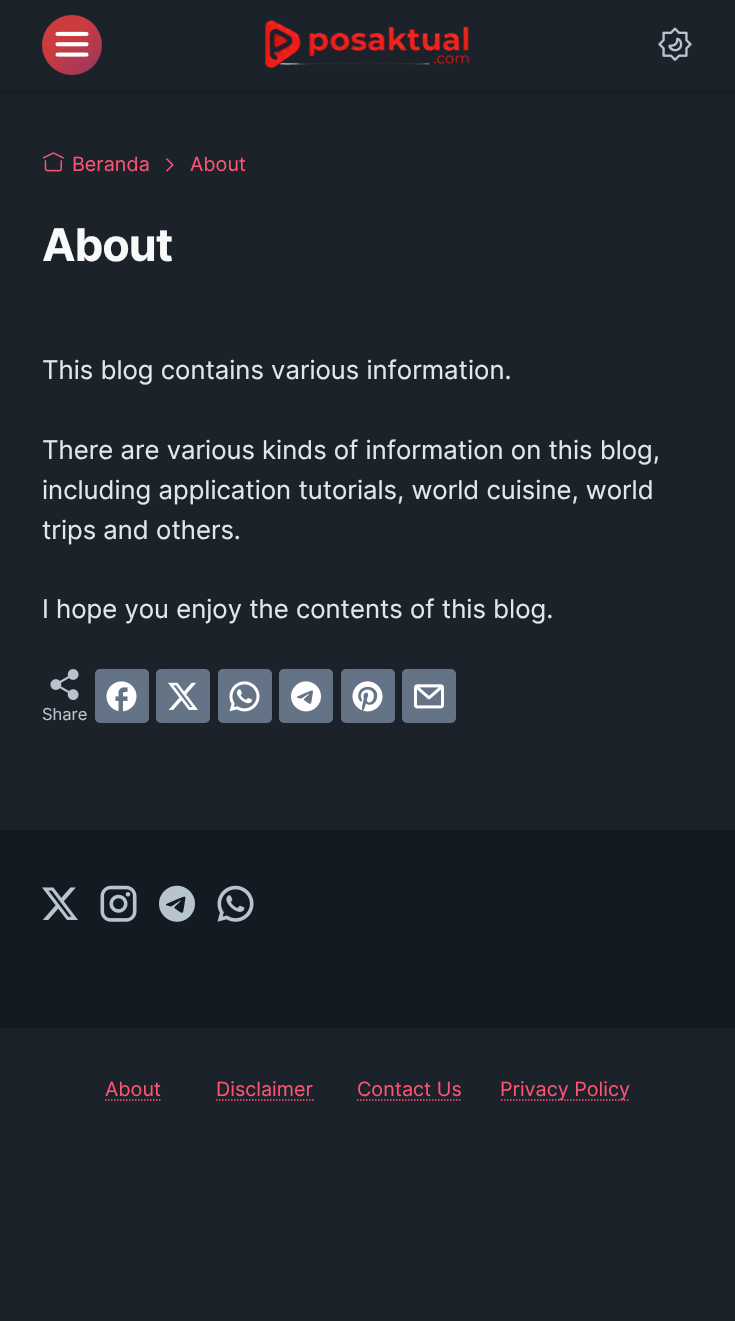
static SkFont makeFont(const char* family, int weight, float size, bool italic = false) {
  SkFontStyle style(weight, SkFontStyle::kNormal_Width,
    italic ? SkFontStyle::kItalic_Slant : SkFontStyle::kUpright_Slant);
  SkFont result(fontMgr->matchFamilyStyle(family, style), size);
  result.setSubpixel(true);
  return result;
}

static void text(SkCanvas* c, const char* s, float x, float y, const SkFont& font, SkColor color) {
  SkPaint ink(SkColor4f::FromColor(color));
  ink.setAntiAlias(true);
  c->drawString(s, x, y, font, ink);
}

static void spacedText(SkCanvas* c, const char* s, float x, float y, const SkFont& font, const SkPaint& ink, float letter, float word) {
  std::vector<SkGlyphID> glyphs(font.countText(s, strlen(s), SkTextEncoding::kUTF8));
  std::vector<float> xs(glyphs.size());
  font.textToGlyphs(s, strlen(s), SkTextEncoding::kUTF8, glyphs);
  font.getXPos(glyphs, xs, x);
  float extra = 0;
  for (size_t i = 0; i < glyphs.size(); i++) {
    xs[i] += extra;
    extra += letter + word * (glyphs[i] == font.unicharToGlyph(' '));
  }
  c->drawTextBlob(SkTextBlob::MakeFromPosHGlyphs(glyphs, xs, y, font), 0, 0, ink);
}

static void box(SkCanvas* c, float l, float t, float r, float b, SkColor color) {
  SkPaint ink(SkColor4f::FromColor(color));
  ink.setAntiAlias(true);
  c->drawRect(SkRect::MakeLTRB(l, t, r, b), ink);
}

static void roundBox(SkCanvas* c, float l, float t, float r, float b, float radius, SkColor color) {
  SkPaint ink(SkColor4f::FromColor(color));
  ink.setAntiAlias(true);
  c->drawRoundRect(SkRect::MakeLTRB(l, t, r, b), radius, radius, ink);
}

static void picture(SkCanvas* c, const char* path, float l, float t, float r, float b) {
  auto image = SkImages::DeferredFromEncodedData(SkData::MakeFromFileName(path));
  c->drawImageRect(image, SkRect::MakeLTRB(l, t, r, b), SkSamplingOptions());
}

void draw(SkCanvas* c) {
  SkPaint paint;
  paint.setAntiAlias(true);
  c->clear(0xff1c222a);
  c->save();
  c->clipRect(SkRect::MakeLTRB(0, 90, 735, 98));
  paint.setColor(0x4f000000);
  paint.setMaskFilter(SkMaskFilter::MakeBlur(kNormal_SkBlurStyle, 3));
  c->drawRect(SkRect::MakeLTRB(0, 3, 735, 93), paint);
  paint.setMaskFilter(nullptr);
  c->restore();
  {
    const SkColor colors[] = {0xffcd3c3c, 0xff813373};
    const float stops[] = {0.28f, 1};
    const SkPoint ends[] = {{45, 13}, {113, 94}};
    paint.setShader(SkGradientShader::MakeLinear(ends, colors, stops, 2, SkTileMode::kClamp));
    paint.setAlpha(255);
  }
  c->drawCircle(72, 45, 30, paint);
  picture(c, "img_01.png", 55, 31, 89, 57);
  picture(c, "img_02.png", 264, 20, 470, 69);
  picture(c, "img_03.png", 658, 27, 692, 61);
  picture(c, "img_04.png", 42, 152, 64, 172);
  SkFont face1 = makeFont("Inter", 400, 19.75f);
  text(c, "Beranda", 72, 171, face1, 0xffff5373);
  picture(c, "img_05.png", 166, 158, 174, 172);
  text(c, "About", 190, 171, face1, 0xffff5373);
  SkFont face2 = makeFont("Inter", 700, 45);
  paint.setShader(nullptr);
  paint.setColor(0xfff8f9fa);
  spacedText(c, "About", 42, 261, face2, paint, -1, 0);
  SkFont face3 = makeFont("Inter", 400, 25.7f);
  text(c, "This blog contains various information.", 42, 379, face3, 0xffe1e7ec);
  text(c, "There are various kinds of information on this blog,", 42, 459, face3, 0xffe1e7ec);
  text(c, "including application tutorials, world cuisine, world", 42, 499, face3, 0xffe1e7ec);
  text(c, "trips and others.", 42, 539, face3, 0xffe1e7ec);
  text(c, "I hope you enjoy the contents of this blog.", 42, 618, face3, 0xffe1e7ec);
  picture(c, "img_06.png", 50, 669, 79, 700);
  SkFont face4 = makeFont("Inter", 400, 16.5f);
  text(c, "Share", 42, 720, face4, 0xffb8c4cd);
  roundBox(c, 95, 669, 149, 723, 5, 0xff657386);
  picture(c, "img_07.png", 106, 681, 137, 712);
  roundBox(c, 156, 669, 210, 723, 5, 0xff657386);
  picture(c, "img_08.png", 168, 682, 198, 710);
  roundBox(c, 218, 669, 272, 723, 5, 0xff657386);
  picture(c, "img_09.png", 229, 681, 260, 712);
  roundBox(c, 279, 669, 333, 723, 5, 0xff657386);
  picture(c, "img_10.png", 291, 681, 321, 712);
  roundBox(c, 341, 669, 395, 723, 5, 0xff657386);
  picture(c, "img_11.png", 352, 681, 383, 712);
  roundBox(c, 402, 669, 456, 723, 5, 0xff657386);
  picture(c, "img_12.png", 414, 684, 444, 709);
  box(c, 0, 830, 735, 1028, 0xff141a22);
  picture(c, "img_13.png", 42, 887, 78, 920);
  picture(c, "img_14.png", 100, 885, 137, 922);
  picture(c, "img_15.png", 159, 885, 195, 922);
  picture(c, "img_16.png", 217, 885, 254, 922);
  text(c, "About", 105, 1096, face1, 0xffff5373);
  paint.setStyle(SkPaint::kStroke_Style);
  paint.setStrokeWidth(1.5f);
  paint.setColor(0xffff5373);
  paint.setPathEffect(SkDashPathEffect::Make({{1.5f, 1.5f}}, 0));
  c->drawPath(SkPathBuilder().moveTo(105, 1100).lineTo(160.5f, 1100).detach(), paint);
  paint.setPathEffect(nullptr);
  text(c, "Disclaimer", 216, 1096, face1, 0xffff5373);
  paint.setPathEffect(SkDashPathEffect::Make({{1.5f, 1.5f}}, 0));
  c->drawPath(SkPathBuilder().moveTo(216, 1100).lineTo(313.5f, 1100).detach(), paint);
  paint.setPathEffect(nullptr);
  text(c, "Contact Us", 357, 1096, face1, 0xffff5373);
  paint.setPathEffect(SkDashPathEffect::Make({{1.5f, 1.5f}}, 0));
  c->drawPath(SkPathBuilder().moveTo(357, 1100).lineTo(462, 1100).detach(), paint);
  paint.setPathEffect(nullptr);
  paint.setPathEffect(SkDashPathEffect::Make({{1.5f, 1.5f}}, 0));
  c->drawPath(SkPathBuilder().moveTo(501, 1100).lineTo(630, 1100).detach(), paint);
  paint.setPathEffect(nullptr);
  text(c, "Privacy Policy", 500, 1096, face1, 0xffff5373);
}
